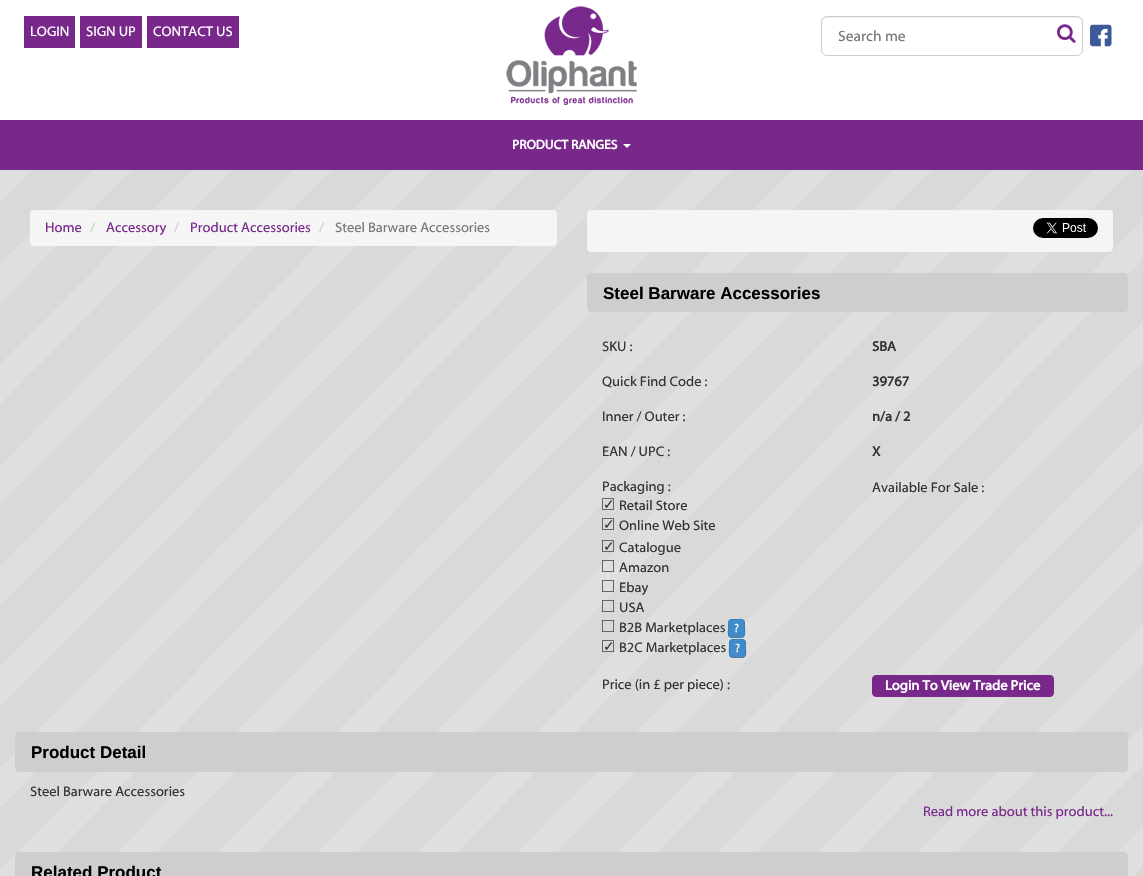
static SkFont makeFont(const char* family, int weight, float size, bool italic = false) {
  SkFontStyle style(weight, SkFontStyle::kNormal_Width,
    italic ? SkFontStyle::kItalic_Slant : SkFontStyle::kUpright_Slant);
  SkFont result(fontMgr->matchFamilyStyle(family, style), size);
  result.setSubpixel(true);
  return result;
}

static void text(SkCanvas* c, const char* s, float x, float y, const SkFont& font, SkColor color) {
  SkPaint ink(SkColor4f::FromColor(color));
  ink.setAntiAlias(true);
  c->drawString(s, x, y, font, ink);
}

static void box(SkCanvas* c, float l, float t, float r, float b, SkColor color) {
  SkPaint ink(SkColor4f::FromColor(color));
  ink.setAntiAlias(true);
  c->drawRect(SkRect::MakeLTRB(l, t, r, b), ink);
}

static void roundBox(SkCanvas* c, float l, float t, float r, float b, float radius, SkColor color) {
  SkPaint ink(SkColor4f::FromColor(color));
  ink.setAntiAlias(true);
  c->drawRoundRect(SkRect::MakeLTRB(l, t, r, b), radius, radius, ink);
}

static void picture(SkCanvas* c, const char* path, float l, float t, float r, float b) {
  auto image = SkImages::DeferredFromEncodedData(SkData::MakeFromFileName(path));
  c->drawImageRect(image, SkRect::MakeLTRB(l, t, r, b), SkSamplingOptions());
}

void draw(SkCanvas* c) {
  SkPaint paint;
  paint.setAntiAlias(true);
  c->clear(0xffffffff);
  picture(c, "img_01.png", 0, 170, 1143, 876);
  box(c, 24, 16, 75, 48, 0xff78288b);
  SkFont face1 = makeFont("Myriad", 400, 14);
  text(c, "LOGIN", 30, 36, face1, 0xffffffff);
  box(c, 80, 16, 142, 48, 0xff78288b);
  text(c, "SIGN UP", 86, 36, face1, 0xffffffff);
  box(c, 147, 16, 239, 48, 0xff78288b);
  text(c, "CONTACT US", 153, 36, face1, 0xffffffff);
  picture(c, "img_02.png", 506, 6, 637, 105);
  paint.setColor(0xffececec);
  c->drawPath(SkPathBuilder().moveTo(827, 18).lineTo(1077, 18).cubicTo(1080, 18, 1082, 20, 1082, 23).cubicTo(1082, 20, 1080, 17, 1077, 17).lineTo(827, 17).cubicTo(824, 17, 822, 20, 822, 23).cubicTo(822, 20, 824, 18, 827, 18).close().detach(), paint);
  paint.setStyle(SkPaint::kStroke_Style);
  paint.setStrokeWidth(1);
  paint.setColor(0xffcccccc);
  c->drawRoundRect(SkRect::MakeLTRB(821.5f, 16.5f, 1082.5f, 55.5f), 5.5f, 5.5f, paint);
  SkFont face2 = makeFont("Myriad", 400, 15);
  text(c, "Search me", 838, 41, face2, 0xff777777);
  picture(c, "img_03.png", 1057, 24, 1076, 43);
  picture(c, "img_04.png", 1090, 24, 1112, 47);
  box(c, 0, 120, 1143, 170, 0xff78288b);
  SkFont face3 = makeFont("Myriad", 700, 13);
  text(c, "PRODUCT RANGES", 512, 149, face3, 0xffffffff);
  paint.setStyle(SkPaint::kFill_Style);
  paint.setColor(0xffffffff);
  c->drawPath(SkPathBuilder().moveTo(623, 144).lineTo(631, 144).lineTo(627, 148).close().detach(), paint);
  roundBox(c, 30, 210, 557, 246, 4, 0xfff5f5f5);
  text(c, "Home", 45, 232, face1, 0xff78288b);
  text(c, "/", 90, 232, face1, 0xffcccccc);
  text(c, "Accessory", 106, 232, face1, 0xff78288b);
  text(c, "/", 174, 232, face1, 0xffcccccc);
  text(c, "Product Accessories", 190, 232, face1, 0xff78288b);
  text(c, "/", 319, 232, face1, 0xffcccccc);
  text(c, "Steel Barware Accessories", 335, 232, face1, 0xff777777);
  roundBox(c, 587, 210, 1113, 252, 4, 0xfff5f5f5);
  picture(c, "img_05.png", 1033, 218, 1098, 238);
  paint.setColor(0xffd0cdcd);
  c->drawRoundRect(SkRect::MakeLTRB(587.5f, 273.5f, 1127.5f, 311.5f), 3.5f, 3.5f, paint);
  paint.setStyle(SkPaint::kStroke_Style);
  c->drawRoundRect(SkRect::MakeLTRB(587.5f, 273.5f, 1127.5f, 311.5f), 3.5f, 3.5f, paint);
  SkFont face4 = makeFont("Liberation Sans", 700, 17);
  text(c, "Steel Barware Accessories", 603, 299, face4, 0xff000000);
  text(c, "SKU :", 602, 351, face1, 0xff333333);
  SkFont face5 = makeFont("Myriad", 700, 14);
  text(c, "SBA", 872, 351, face5, 0xff333333);
  text(c, "Quick Find Code :", 602, 386, face1, 0xff333333);
  text(c, "39767", 872, 386, face5, 0xff333333);
  text(c, "Inner / Outer :", 602, 421, face1, 0xff333333);
  text(c, "n/a / 2", 872, 421, face5, 0xff333333);
  text(c, "EAN / UPC :", 602, 456, face1, 0xff333333);
  text(c, "X", 872, 456, face5, 0xff333333);
  text(c, "Packaging :", 602, 491, face1, 0xff333333);
  text(c, "Available For Sale :", 872, 492, face1, 0xff333333);
  paint.setColor(0xff666666);
  c->drawRect(SkRect::MakeLTRB(602.5f, 498.5f, 613.5f, 509.5f), paint);
  SkFont face6 = makeFont("DejaVu Sans", 400, 14);
  text(c, "✓", 603, 509, face6, 0xff333333);
  text(c, "Retail Store", 619, 510, face1, 0xff333333);
  c->drawRect(SkRect::MakeLTRB(602.5f, 518.5f, 613.5f, 529.5f), paint);
  text(c, "✓", 603, 529, face6, 0xff333333);
  text(c, "Online Web Site", 619, 530, face1, 0xff333333);
  c->drawRect(SkRect::MakeLTRB(602.5f, 540.5f, 613.5f, 551.5f), paint);
  text(c, "✓", 603, 551, face6, 0xff333333);
  text(c, "Catalogue", 619, 552, face1, 0xff333333);
  c->drawRect(SkRect::MakeLTRB(602.5f, 560.5f, 613.5f, 571.5f), paint);
  text(c, "Amazon", 619, 572, face1, 0xff333333);
  c->drawRect(SkRect::MakeLTRB(602.5f, 580.5f, 613.5f, 591.5f), paint);
  text(c, "Ebay", 619, 592, face1, 0xff333333);
  c->drawRect(SkRect::MakeLTRB(602.5f, 600.5f, 613.5f, 611.5f), paint);
  text(c, "USA", 619, 612, face1, 0xff333333);
  c->drawRect(SkRect::MakeLTRB(602.5f, 620.5f, 613.5f, 631.5f), paint);
  text(c, "B2B Marketplaces", 619, 632, face1, 0xff333333);
  roundBox(c, 728, 619, 745, 638, 4, 0xff428bca);
  paint.setPathEffect(SkDashPathEffect::Make({{1, 1}}, 0));
  c->drawPath(SkPathBuilder().moveTo(743.5f, 636.5f).cubicTo(741.5f, 638, 738.5f, 637.5f, 736.5f, 637.5f).cubicTo(734.5f, 637.5f, 731.5f, 638, 729.5f, 636.5f).detach(), paint);
  paint.setPathEffect(nullptr);
  paint.setColor(0xff357ebd);
  c->drawPath(SkPathBuilder().moveTo(729.5f, 636.5f).cubicTo(727.5f, 634.5f, 728.5f, 630.5f, 728.5f, 628.5f).cubicTo(728.5f, 620, 728, 619.5f, 736.5f, 619.5f).cubicTo(744, 619.5f, 744.5f, 619, 744.5f, 626.5f).cubicTo(744.5f, 629, 745.5f, 634.5f, 743.5f, 636.5f).detach(), paint);
  SkFont face7 = makeFont("Myriad", 400, 12);
  text(c, "?", 734, 632, face7, 0xffffffff);
  paint.setColor(0xff666666);
  c->drawRect(SkRect::MakeLTRB(602.5f, 640.5f, 613.5f, 651.5f), paint);
  text(c, "✓", 603, 651, face6, 0xff333333);
  text(c, "B2C Marketplaces", 619, 652, face1, 0xff333333);
  roundBox(c, 729, 639, 746, 658, 4, 0xff428bca);
  paint.setPathEffect(SkDashPathEffect::Make({{1, 1}}, 0));
  c->drawPath(SkPathBuilder().moveTo(744.5f, 656.5f).cubicTo(742.5f, 658, 739.5f, 657.5f, 737.5f, 657.5f).cubicTo(735.5f, 657.5f, 732.5f, 658, 730.5f, 656.5f).detach(), paint);
  paint.setPathEffect(nullptr);
  paint.setColor(0xff357ebd);
  c->drawPath(SkPathBuilder().moveTo(730.5f, 656.5f).cubicTo(728.5f, 654.5f, 729.5f, 649, 729.5f, 646.5f).cubicTo(729.5f, 639, 730, 639.5f, 737.5f, 639.5f).cubicTo(746, 639.5f, 745.5f, 640, 745.5f, 648.5f).cubicTo(745.5f, 650.5f, 746.5f, 654.5f, 744.5f, 656.5f).detach(), paint);
  text(c, "?", 735, 652, face7, 0xffffffff);
  text(c, "Price (in £ per piece) :", 602, 689, face1, 0xff333333);
  paint.setStyle(SkPaint::kFill_Style);
  paint.setColor(0xff78288b);
  c->drawRoundRect(SkRect::MakeLTRB(872.5f, 675.5f, 1053.5f, 696.5f), 3.5f, 3.5f, paint);
  paint.setStyle(SkPaint::kStroke_Style);
  c->drawRoundRect(SkRect::MakeLTRB(872.5f, 675.5f, 1053.5f, 696.5f), 3.5f, 3.5f, paint);
  text(c, "Login To View Trade Price", 885, 690, face5, 0xffffffff);
  paint.setStyle(SkPaint::kFill_Style);
  paint.setColor(0xffd0cdcd);
  c->drawRoundRect(SkRect::MakeLTRB(15.5f, 732.5f, 1127.5f, 771.5f), 3.5f, 3.5f, paint);
  paint.setStyle(SkPaint::kStroke_Style);
  c->drawRoundRect(SkRect::MakeLTRB(15.5f, 732.5f, 1127.5f, 771.5f), 3.5f, 3.5f, paint);
  text(c, "Product Detail", 31, 758, face4, 0xff000000);
  text(c, "Steel Barware Accessories", 30, 796, face1, 0xff333333);
  text(c, "Read more about this product...", 923, 816, face1, 0xff78288b);
  paint.setStyle(SkPaint::kFill_Style);
  c->drawRoundRect(SkRect::MakeLTRB(15.5f, 852.5f, 1127.5f, 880.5f), 3.5f, 3.5f, paint);
  paint.setStyle(SkPaint::kStroke_Style);
  c->drawRoundRect(SkRect::MakeLTRB(15.5f, 852.5f, 1127.5f, 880.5f), 3.5f, 3.5f, paint);
  text(c, "Related Product", 31, 878, face4, 0xff000000);
}
